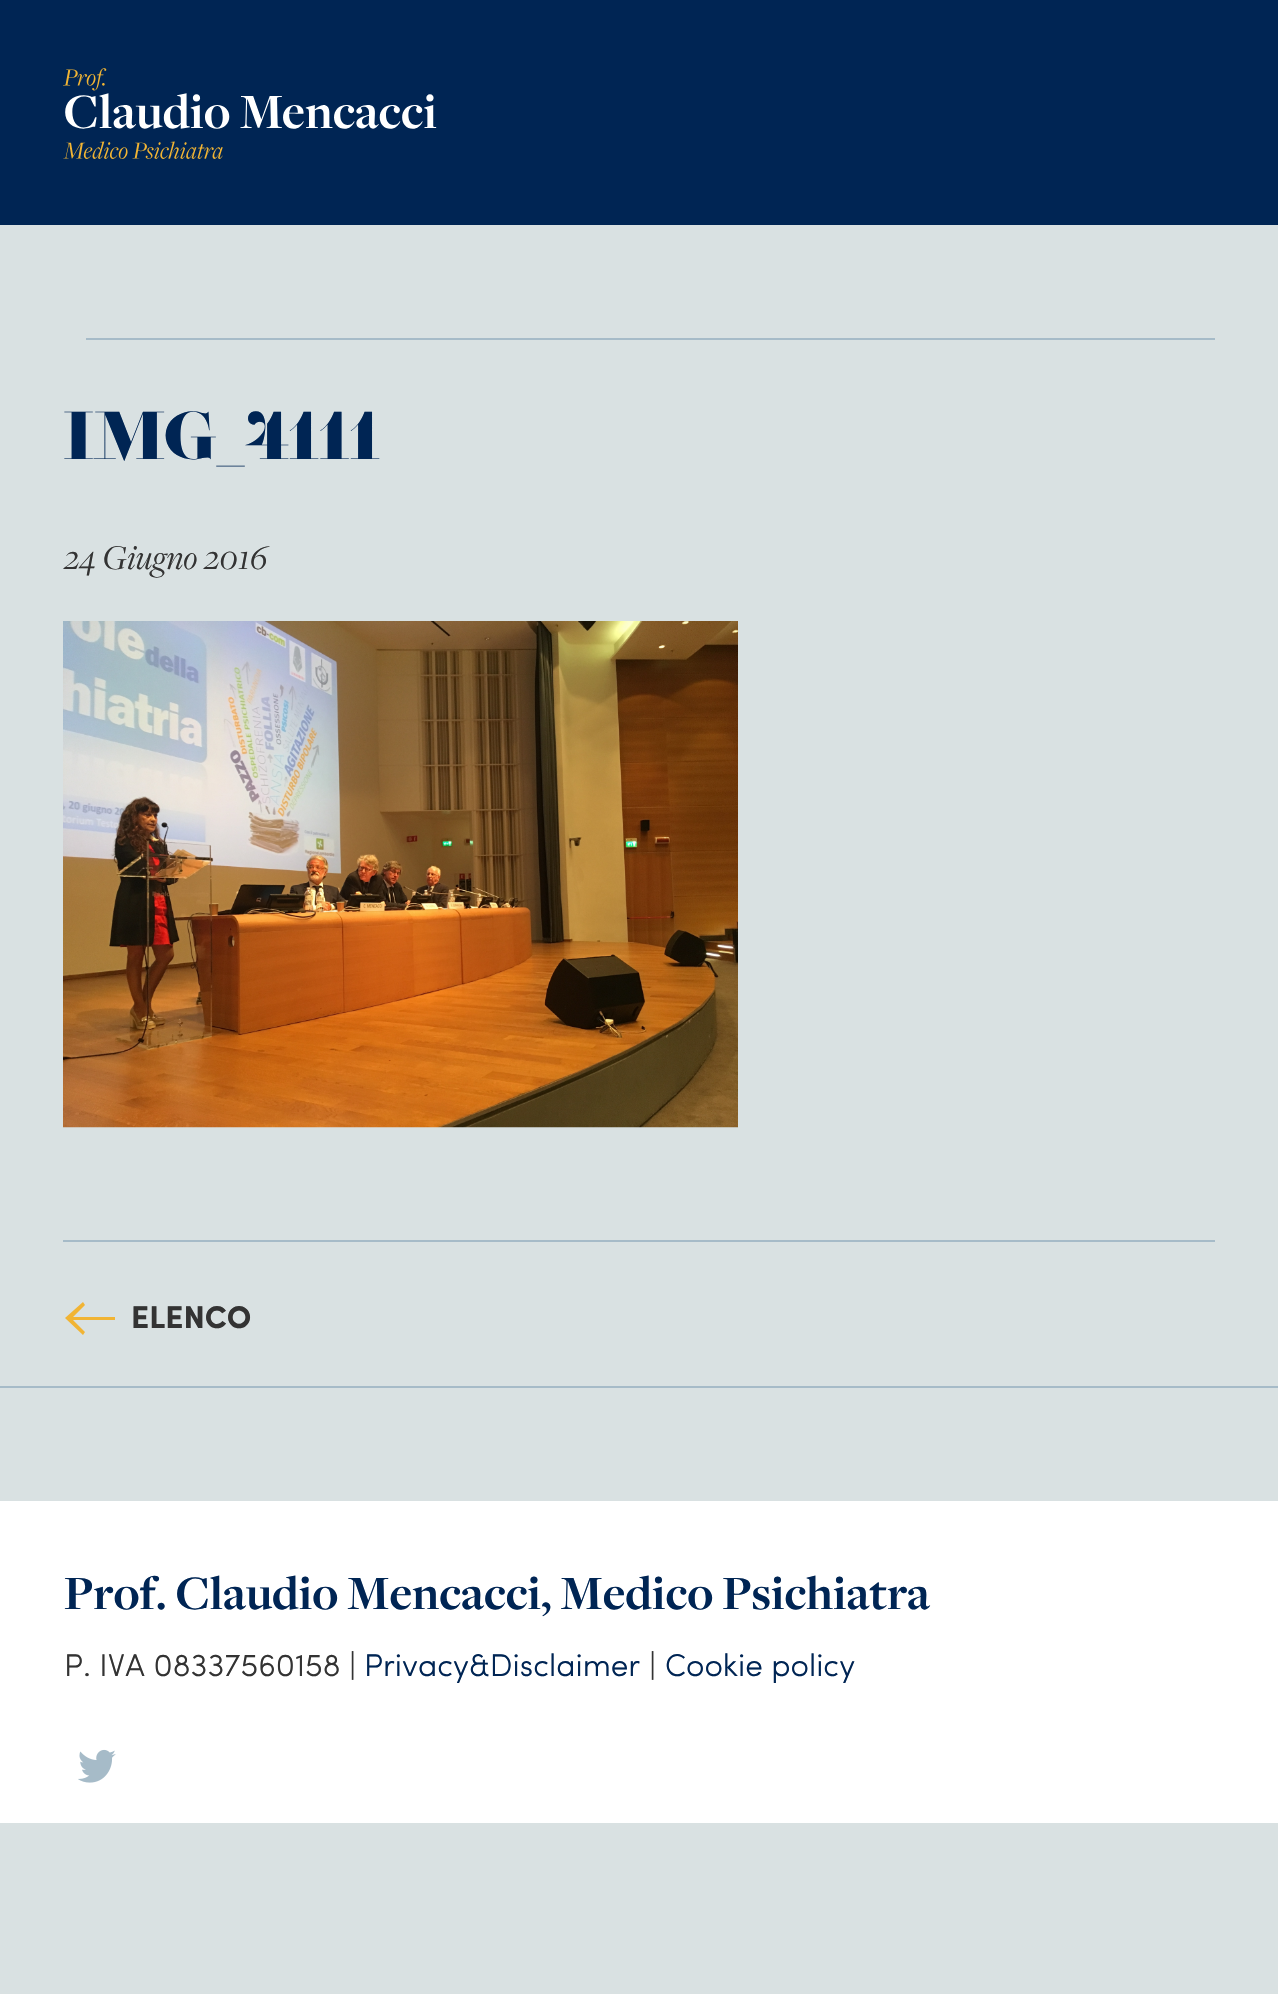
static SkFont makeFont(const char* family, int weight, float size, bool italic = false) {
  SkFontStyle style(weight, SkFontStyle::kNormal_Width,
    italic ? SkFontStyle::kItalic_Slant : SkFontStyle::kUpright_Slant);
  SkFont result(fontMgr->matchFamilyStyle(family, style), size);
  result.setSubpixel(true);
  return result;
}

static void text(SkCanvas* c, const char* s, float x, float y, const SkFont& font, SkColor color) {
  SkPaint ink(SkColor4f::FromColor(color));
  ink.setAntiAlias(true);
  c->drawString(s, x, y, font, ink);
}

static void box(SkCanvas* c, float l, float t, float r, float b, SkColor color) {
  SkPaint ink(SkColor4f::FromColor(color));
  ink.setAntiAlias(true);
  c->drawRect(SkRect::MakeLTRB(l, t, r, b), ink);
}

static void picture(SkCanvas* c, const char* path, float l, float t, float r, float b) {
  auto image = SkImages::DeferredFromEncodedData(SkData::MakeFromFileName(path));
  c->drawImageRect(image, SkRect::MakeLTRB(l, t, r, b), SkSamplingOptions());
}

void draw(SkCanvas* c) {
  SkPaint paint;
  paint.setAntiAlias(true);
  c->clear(0xffd9e1e2);
  box(c, 0, 0, 1278, 225, 0xff002554);
  picture(c, "img_01.png", 63, 68, 437, 159);
  box(c, 86, 338, 1215, 340, 0xffa6bbc8);
  box(c, 0, 1386, 1278, 1388, 0xffa6bbc8);
  SkFont face1 = makeFont("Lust", 400, 67.5f);
  text(c, "IMG_4111", 64, 459, face1, 0xff002554);
  SkFont face2 = makeFont("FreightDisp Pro", 400, 36, true);
  text(c, "24 Giugno 2016", 64, 569, face2, 0xff333333);
  picture(c, "img_02.png", 63, 621, 738, 1128);
  box(c, 63, 1240, 1215, 1242, 0xffa6bbc8);
  paint.setColor(0xfff1b434);
  c->drawPath(SkPathBuilder().moveTo(83, 1335).lineTo(65, 1318).lineTo(83, 1302).lineTo(85, 1305).lineTo(73, 1317).lineTo(115, 1317).lineTo(115, 1320).lineTo(73, 1320).lineTo(85, 1332).close().detach(), paint);
  SkFont face3 = makeFont("Sofia", 700, 31.5f);
  text(c, "ELENCO", 131, 1328, face3, 0xff333333);
  box(c, 0, 1501, 1278, 1823, 0xffffffff);
  SkFont face4 = makeFont("FreightDisp Pro", 700, 49.5f);
  text(c, "Prof. Claudio Mencacci, Medico Psichiatra", 64, 1609, face4, 0xff002554);
  SkFont face5 = makeFont("Sofia", 300, 31.5f);
  text(c, "P. IVA 08337560158 |", 64, 1676, face5, 0xff333333);
  text(c, "Privacy&Disclaimer", 364, 1676, face5, 0xff002554);
  text(c, "|", 649, 1676, face5, 0xff333333);
  text(c, "Cookie policy", 665, 1676, face5, 0xff002554);
  picture(c, "img_03.png", 78, 1749, 116, 1783);
}
